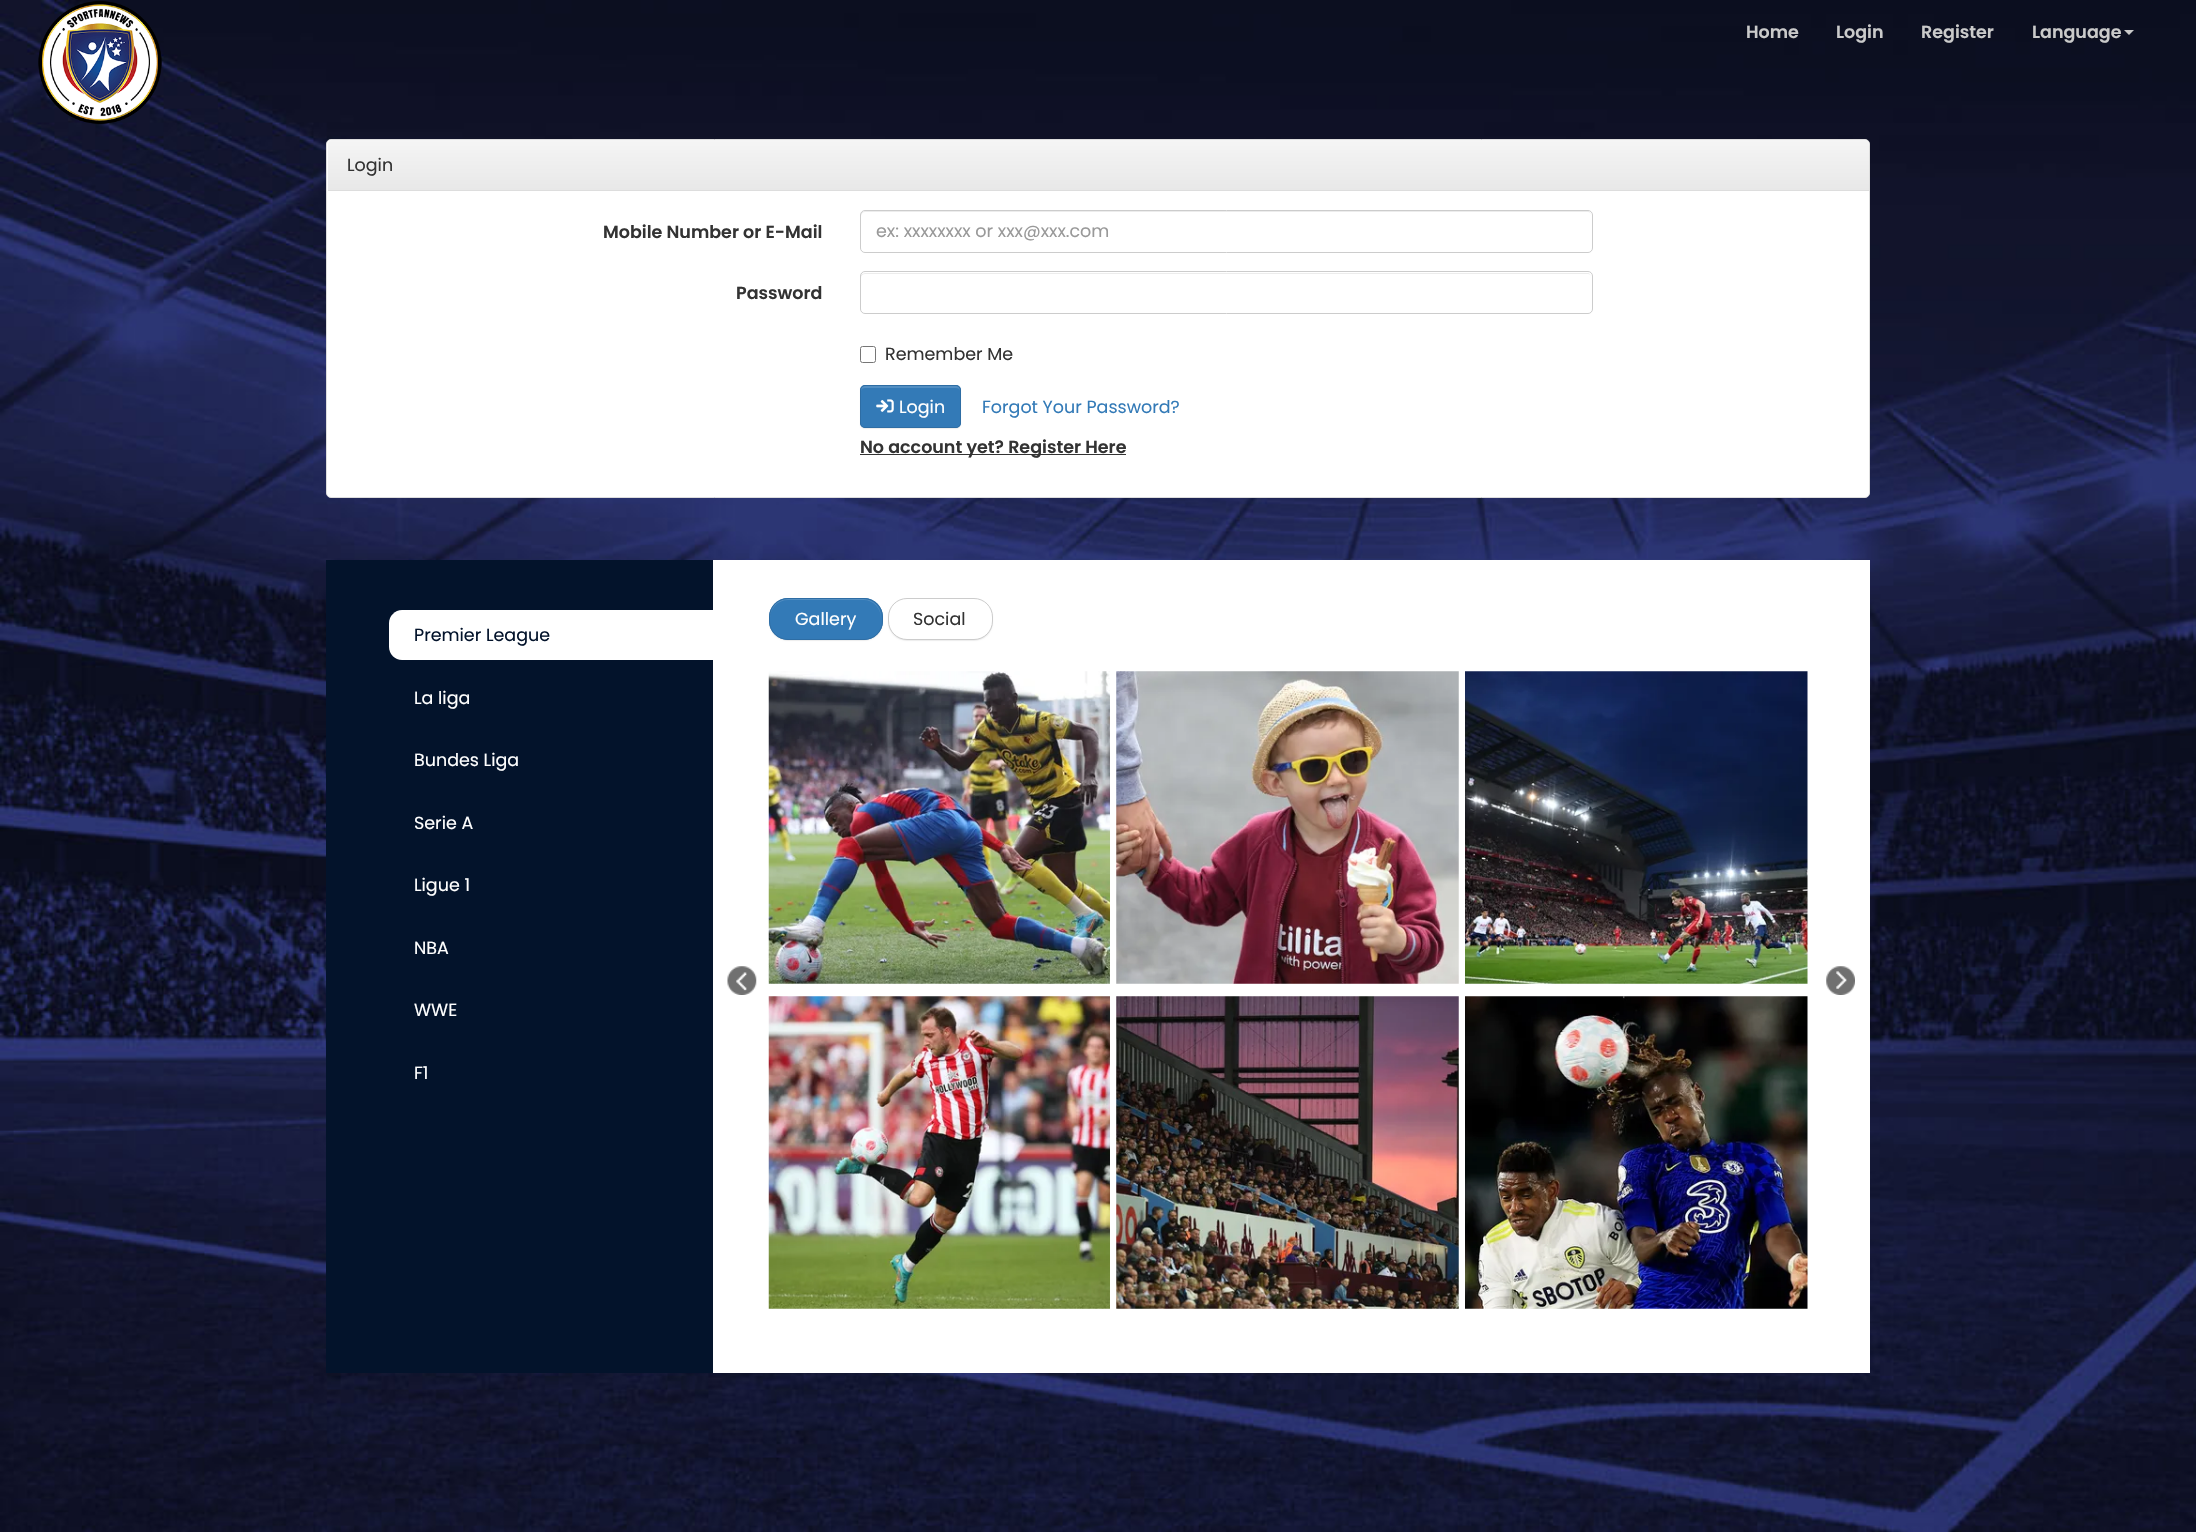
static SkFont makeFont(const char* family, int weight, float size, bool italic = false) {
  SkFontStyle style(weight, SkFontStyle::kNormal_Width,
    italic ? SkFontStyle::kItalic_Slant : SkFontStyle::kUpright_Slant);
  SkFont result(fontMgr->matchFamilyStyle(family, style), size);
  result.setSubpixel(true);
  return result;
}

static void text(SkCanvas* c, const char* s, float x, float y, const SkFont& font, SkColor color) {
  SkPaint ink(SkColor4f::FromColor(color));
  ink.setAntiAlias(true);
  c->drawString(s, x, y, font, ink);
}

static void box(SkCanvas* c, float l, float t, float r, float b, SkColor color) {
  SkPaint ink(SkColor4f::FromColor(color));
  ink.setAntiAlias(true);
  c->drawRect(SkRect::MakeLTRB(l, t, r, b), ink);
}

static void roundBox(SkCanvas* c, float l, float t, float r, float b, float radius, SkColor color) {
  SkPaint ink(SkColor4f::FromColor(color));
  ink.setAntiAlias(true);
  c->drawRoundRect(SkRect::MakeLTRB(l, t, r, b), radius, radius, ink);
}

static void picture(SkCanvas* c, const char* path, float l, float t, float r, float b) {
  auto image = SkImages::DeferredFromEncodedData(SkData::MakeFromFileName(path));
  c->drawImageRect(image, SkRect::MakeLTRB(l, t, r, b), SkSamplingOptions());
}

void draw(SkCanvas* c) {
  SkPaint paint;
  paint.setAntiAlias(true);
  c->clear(0xffffffff);
  picture(c, "img_01.png", 0, 0, 2196, 1532);
  SkFont face1 = makeFont("Poppins", 600, 17.5f);
  text(c, "Home", 1746, 38, face1, 0xffcacaca);
  text(c, "Login", 1836, 38, face1, 0xffcacaca);
  text(c, "Register", 1921, 38, face1, 0xffcacaca);
  text(c, "Language", 2032, 38, face1, 0xffcacaca);
  paint.setColor(0xffcacaca);
  c->drawPath(SkPathBuilder().moveTo(2124, 30).lineTo(2134, 30).lineTo(2129, 35).close().detach(), paint);
  picture(c, "img_02.png", 38, 0, 162, 125);
  paint.setColor(0xffffffff);
  c->drawRoundRect(SkRect::MakeLTRB(326.5f, 139.5f, 1869.5f, 497.5f), 4.5f, 4.5f, paint);
  paint.setStyle(SkPaint::kStroke_Style);
  paint.setStrokeWidth(1);
  paint.setColor(0xffdddddd);
  c->drawRoundRect(SkRect::MakeLTRB(326.5f, 139.5f, 1869.5f, 497.5f), 4.5f, 4.5f, paint);
  paint.setStyle(SkPaint::kFill_Style);
  {
    const SkColor colors[] = {0xfff5f5f5, 0xffe8e8e8};
    const float stops[] = {0, 1};
    const SkPoint ends[] = {{1098, 140}, {1098, 190}};
    paint.setShader(SkGradientShader::MakeLinear(ends, colors, stops, 2, SkTileMode::kClamp));
    paint.setAlpha(255);
  }
  c->drawPath(SkPathBuilder().moveTo(332, 140).lineTo(1865, 140).cubicTo(1867, 140, 1869, 142, 1869, 144).lineTo(1869, 190).lineTo(328, 190).lineTo(328, 144).cubicTo(328, 142, 330, 140, 332, 140).close().detach(), paint);
  box(c, 328, 190, 1869, 191, 0xffdddddd);
  SkFont face2 = makeFont("Poppins", 400, 17.5f);
  text(c, "Login", 347, 171, face2, 0xff333333);
  text(c, "Mobile Number or E-Mail", 603, 238, face1, 0xff333333);
  paint.setShader(nullptr);
  paint.setColor(0xffececec);
  c->drawPath(SkPathBuilder().moveTo(865, 212).lineTo(1588, 212).cubicTo(1590, 212, 1591, 214, 1591, 216).cubicTo(1591, 213, 1590, 211, 1587, 211).lineTo(865, 211).lineTo(862, 212).lineTo(861, 213).lineTo(861, 216).cubicTo(861, 214, 863, 212, 865, 212).close().detach(), paint);
  paint.setStyle(SkPaint::kStroke_Style);
  paint.setColor(0xffcccccc);
  c->drawRoundRect(SkRect::MakeLTRB(860.5f, 210.5f, 1592.5f, 252.5f), 4.5f, 4.5f, paint);
  text(c, "ex: xxxxxxxx or xxx@xxx.com", 876, 237, face2, 0xff999999);
  text(c, "Password", 736, 299, face1, 0xff333333);
  paint.setStyle(SkPaint::kFill_Style);
  paint.setColor(0xffececec);
  c->drawPath(SkPathBuilder().moveTo(865, 274).lineTo(1588, 274).cubicTo(1590, 274, 1591, 275, 1591, 278).cubicTo(1591, 275, 1590, 273, 1587, 273).lineTo(865, 273).lineTo(862, 274).lineTo(861, 275).lineTo(861, 278).cubicTo(861, 275, 863, 274, 865, 274).close().detach(), paint);
  paint.setStyle(SkPaint::kStroke_Style);
  paint.setColor(0xffcccccc);
  c->drawRoundRect(SkRect::MakeLTRB(860.5f, 271.5f, 1592.5f, 313.5f), 4.5f, 4.5f, paint);
  paint.setColor(0xff767676);
  c->drawRoundRect(SkRect::MakeLTRB(860.5f, 346.5f, 875.5f, 362.5f), 2, 2, paint);
  text(c, "Remember Me", 885, 360, face2, 0xff333333);
  paint.setStyle(SkPaint::kFill_Style);
  paint.setColor(0x12000000);
  paint.setMaskFilter(SkMaskFilter::MakeBlur(kNormal_SkBlurStyle, 0.5f));
  c->drawRoundRect(SkRect::MakeLTRB(860, 386, 961, 429), 5, 5, paint);
  paint.setMaskFilter(nullptr);
  roundBox(c, 860, 385, 961, 428, 5, 0xff337ab7);
  paint.setColor(0xff528ec2);
  c->drawPath(SkPathBuilder().moveTo(865, 388).lineTo(956, 388).cubicTo(958, 388, 960, 389, 960, 391).cubicTo(960, 382, 945, 386, 941, 386).lineTo(880, 386).cubicTo(876, 386, 861, 382, 861, 391).cubicTo(861, 389, 863, 388, 865, 388).close().detach(), paint);
  paint.setStyle(SkPaint::kStroke_Style);
  paint.setColor(0xff2e6da4);
  c->drawRoundRect(SkRect::MakeLTRB(860.5f, 385.5f, 960.5f, 427.5f), 4.5f, 4.5f, paint);
  picture(c, "img_03.png", 876, 399, 894, 413);
  text(c, "Login", 899, 413, face2, 0xffffffff);
  text(c, "Forgot Your Password?", 982, 413, face2, 0xff337ab7);
  box(c, 860, 454, 1126, 455, 0xff333333);
  text(c, "No account yet? Register Here", 860, 453, face1, 0xff333333);
  box(c, 713, 560, 1870, 1373, 0xffffffff);
  paint.setStyle(SkPaint::kFill_Style);
  paint.setColor(0x12000000);
  paint.setMaskFilter(SkMaskFilter::MakeBlur(kNormal_SkBlurStyle, 0.5f));
  c->drawRoundRect(SkRect::MakeLTRB(769, 599, 883, 641), 19, 19, paint);
  paint.setMaskFilter(nullptr);
  roundBox(c, 769, 598, 883, 640, 19, 0xff337ab7);
  paint.setColor(0xff528ec2);
  c->drawPath(SkPathBuilder().moveTo(788, 600).lineTo(864, 600).cubicTo(873, 600, 881, 608, 881, 618).lineTo(881, 617).cubicTo(881, 607, 873, 599, 863, 599).lineTo(788, 599).cubicTo(778, 599, 770, 607, 770, 617).lineTo(770, 618).cubicTo(770, 608, 778, 600, 788, 600).close().detach(), paint);
  paint.setStyle(SkPaint::kStroke_Style);
  paint.setColor(0xff2e6da4);
  c->drawRoundRect(SkRect::MakeLTRB(769.5f, 598.5f, 882.5f, 639.5f), 18.5f, 18.5f, paint);
  text(c, "Gallery", 795, 625, face2, 0xffffffff);
  paint.setStyle(SkPaint::kFill_Style);
  paint.setColor(0x12000000);
  paint.setMaskFilter(SkMaskFilter::MakeBlur(kNormal_SkBlurStyle, 0.5f));
  c->drawRoundRect(SkRect::MakeLTRB(888, 599, 993, 641), 19, 19, paint);
  paint.setMaskFilter(nullptr);
  paint.setColor(0xffffffff);
  c->drawRoundRect(SkRect::MakeLTRB(888.5f, 598.5f, 992.5f, 639.5f), 18.5f, 18.5f, paint);
  paint.setStyle(SkPaint::kStroke_Style);
  paint.setColor(0xffcccccc);
  c->drawRoundRect(SkRect::MakeLTRB(888.5f, 598.5f, 992.5f, 639.5f), 18.5f, 18.5f, paint);
  text(c, "Social", 913, 625, face2, 0xff333333);
  picture(c, "img_04.png", 727, 966, 757, 995);
  picture(c, "img_05.png", 768, 671, 1110, 984);
  picture(c, "img_06.png", 1116, 671, 1459, 984);
  picture(c, "img_07.png", 1465, 671, 1808, 984);
  picture(c, "img_08.png", 768, 996, 1110, 1309);
  picture(c, "img_09.png", 1116, 996, 1459, 1309);
  picture(c, "img_10.png", 1465, 996, 1808, 1309);
  picture(c, "img_11.png", 1826, 966, 1855, 995);
  box(c, 326, 560, 713, 1373, 0xff03132b);
  paint.setStyle(SkPaint::kFill_Style);
  paint.setColor(0xffffffff);
  c->drawPath(SkPathBuilder().moveTo(402, 610).lineTo(713, 610).lineTo(713, 660).lineTo(402, 660).cubicTo(395, 660, 389, 654, 389, 647).lineTo(389, 623).cubicTo(389, 616, 395, 610, 402, 610).close().detach(), paint);
  text(c, "Premier League", 414, 641, face2, 0xff03132b);
  text(c, "La liga", 414, 704, face2, 0xffffffff);
  text(c, "Bundes Liga", 414, 766, face2, 0xffffffff);
  text(c, "Serie A", 414, 829, face2, 0xffffffff);
  text(c, "Ligue 1", 414, 891, face2, 0xffffffff);
  text(c, "NBA", 414, 954, face2, 0xffffffff);
  text(c, "WWE", 414, 1016, face2, 0xffffffff);
  text(c, "F1", 414, 1079, face2, 0xffffffff);
}
